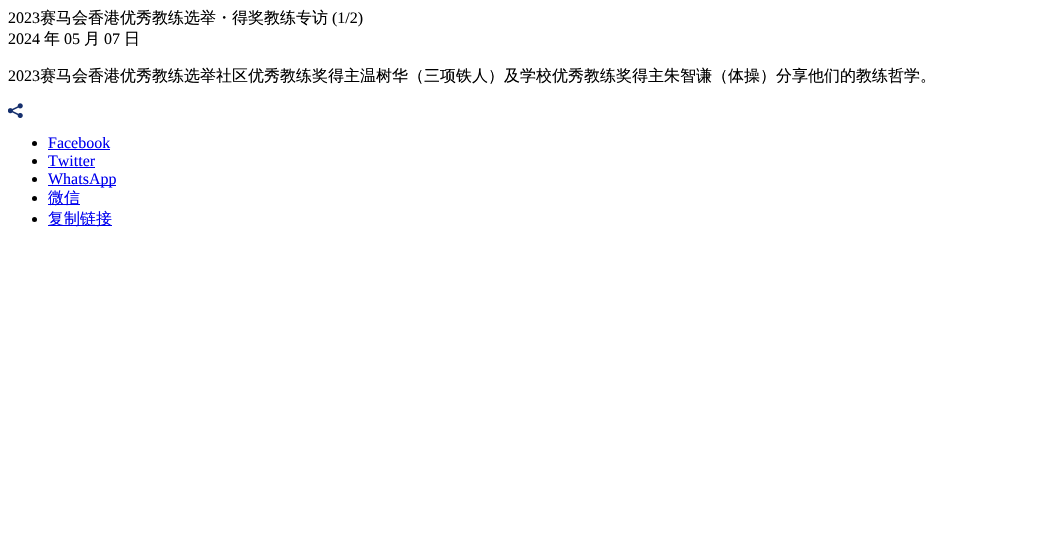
void draw(SkCanvas* canvas) {
	SkPaint paint;
	paint.setAntiAlias(true);
	canvas->clear(0xffffffff);
	SkFont f1(fontMgr->matchFamilyStyle("Liberation Serif", SkFontStyle::Normal()), 16);
	f1.setSubpixel(true);
	paint.setColor(0xff000000);
	canvas->drawString("2023", 8, 23, f1, paint);
	SkFont f2(fontMgr->matchFamilyStyle("WenQuanYi Zen Hei", SkFontStyle(500, SkFontStyle::kNormal_Width, SkFontStyle::kUpright_Slant)), 16);
	f2.setSubpixel(true);
	canvas->drawString("赛马会香港优秀教练选举・得奖教练专访", 40, 23, f2, paint);
	canvas->drawString("(1/2)", 332, 23, f1, paint);
	canvas->drawString("2024", 8, 44, f1, paint);
	canvas->drawString("年", 44, 44, f2, paint);
	canvas->drawString("05", 64, 44, f1, paint);
	canvas->drawString("月", 84, 44, f2, paint);
	canvas->drawString("07", 104, 44, f1, paint);
	canvas->drawString("日", 124, 44, f2, paint);
	canvas->drawString("2023", 8, 81, f1, paint);
	canvas->drawString("赛马会香港优秀教练选举社区优秀教练奖得主温树华（三项铁人）及学校优秀教练奖得主朱智谦（体操）分享他们的教练哲学。", 40, 81, f2, paint);
	canvas->drawImageRect(SkImages::DeferredFromEncodedData(SkData::MakeFromFileName("img1.png")), SkRect::MakeXYWH(8, 103, 15, 15), SkSamplingOptions());
	canvas->drawCircle(34.5, 143.5, 2.5, paint);
	paint.setColor(0xff0000ee);
	canvas->drawString("Facebook", 48, 148, f1, paint);
	canvas->drawRect(SkRect::MakeXYWH(48, 149, 62, 1), paint);
	paint.setColor(0xff000000);
	canvas->drawCircle(34.5, 161.5, 2.5, paint);
	paint.setColor(0xff0000ee);
	canvas->drawString("Twitter", 48, 166, f1, paint);
	canvas->drawRect(SkRect::MakeXYWH(48, 167, 47, 1), paint);
	paint.setColor(0xff000000);
	canvas->drawCircle(34.5, 179.5, 2.5, paint);
	paint.setColor(0xff0000ee);
	canvas->drawRect(SkRect::MakeXYWH(48, 185, 68, 1), paint);
	canvas->drawString("WhatsApp", 48, 184, f1, paint);
	paint.setColor(0xff000000);
	canvas->drawCircle(34.5, 198.5, 2.5, paint);
	paint.setColor(0xff0000ee);
	canvas->drawRect(SkRect::MakeXYWH(48, 204, 32, 1), paint);
	canvas->drawString("微信", 48, 203, f2, paint);
	paint.setColor(0xff000000);
	canvas->drawCircle(34.5, 219.5, 2.5, paint);
	paint.setColor(0xff0000ee);
	canvas->drawRect(SkRect::MakeXYWH(48, 225, 64, 1), paint);
	canvas->drawString("复制链接", 48, 224, f2, paint);
}
